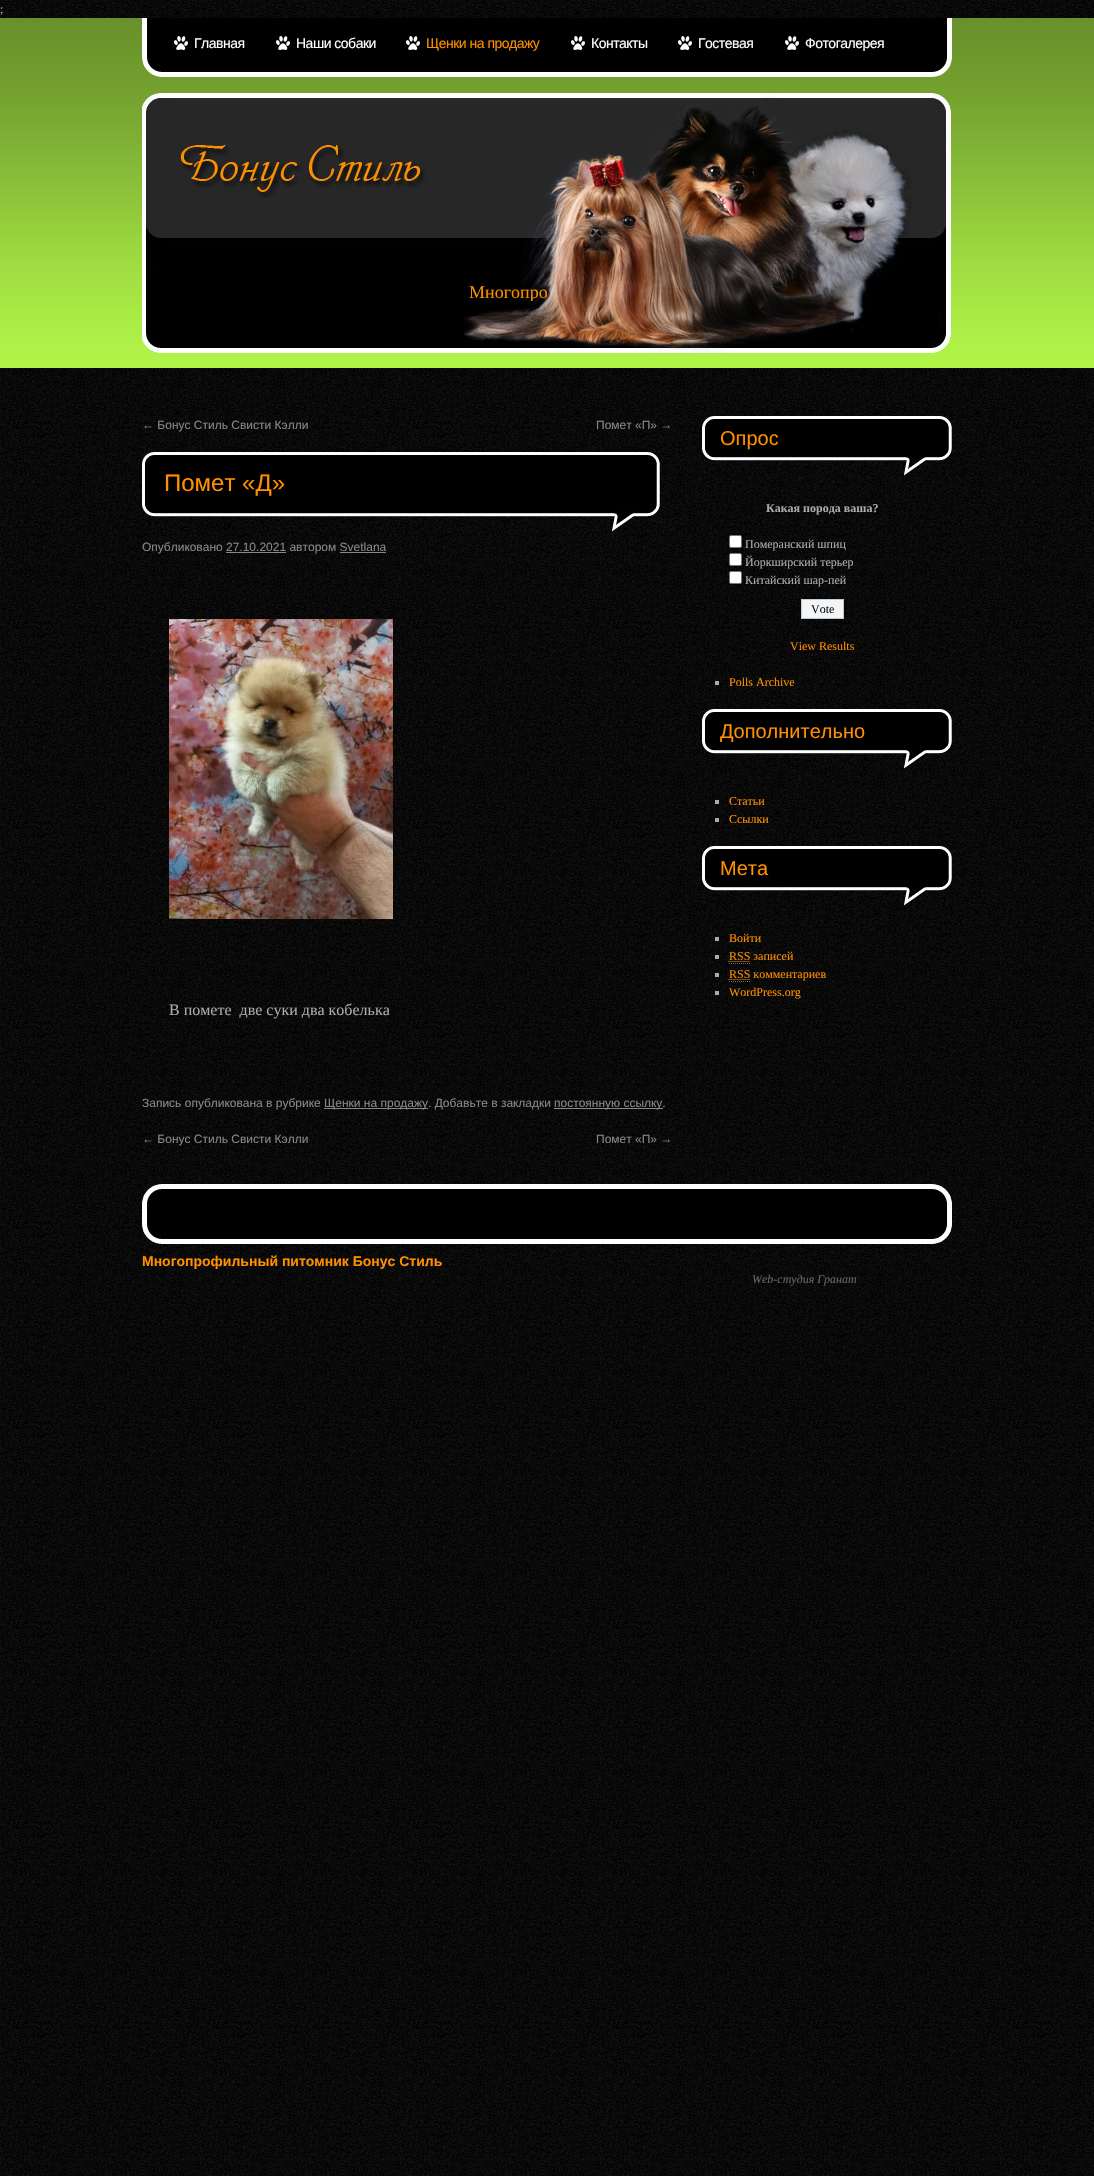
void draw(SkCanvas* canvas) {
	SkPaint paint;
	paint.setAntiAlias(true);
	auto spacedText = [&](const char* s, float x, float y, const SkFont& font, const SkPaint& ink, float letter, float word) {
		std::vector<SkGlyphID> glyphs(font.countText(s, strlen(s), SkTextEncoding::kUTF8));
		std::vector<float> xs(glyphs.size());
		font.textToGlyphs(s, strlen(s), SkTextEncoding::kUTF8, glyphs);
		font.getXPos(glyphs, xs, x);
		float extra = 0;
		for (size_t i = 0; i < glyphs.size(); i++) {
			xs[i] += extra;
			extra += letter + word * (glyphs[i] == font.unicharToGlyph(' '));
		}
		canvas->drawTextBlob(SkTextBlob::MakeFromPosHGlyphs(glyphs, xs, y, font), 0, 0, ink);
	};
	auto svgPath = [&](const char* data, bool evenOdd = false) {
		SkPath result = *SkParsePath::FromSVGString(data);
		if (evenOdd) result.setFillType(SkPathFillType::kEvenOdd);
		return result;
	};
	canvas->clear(0xffffffff);
	canvas->drawImageRect(SkImages::DeferredFromEncodedData(SkData::MakeFromFileName("img1.png")), SkRect::MakeXYWH(0, 0, 1094, 2176), SkSamplingOptions());
	SkFont f1(fontMgr->matchFamilyStyle("Liberation Serif", SkFontStyle::Normal()), 12);
	f1.setSubpixel(true);
	paint.setColor(0xffababab);
	canvas->drawString(";", 0, 13, f1, paint);
	canvas->drawImageRect(SkImages::DeferredFromEncodedData(SkData::MakeFromFileName("img2.png")), SkRect::MakeXYWH(0, 18, 1094, 350), SkSamplingOptions());
	canvas->drawImageRect(SkImages::DeferredFromEncodedData(SkData::MakeFromFileName("img3.png")), SkRect::MakeXYWH(142, 18, 810, 60), SkSamplingOptions());
	canvas->drawImageRect(SkImages::DeferredFromEncodedData(SkData::MakeFromFileName("img4.png")), SkRect::MakeXYWH(174, 36, 14, 14), SkSamplingOptions());
	SkFont f2(fontMgr->matchFamilyStyle("Liberation Sans", SkFontStyle::Normal()), 14);
	f2.setSubpixel(true);
	paint.setColor(0xffffffff);
	spacedText("Главная", 194, 48, f2, paint, -0.5, 0);
	canvas->drawImageRect(SkImages::DeferredFromEncodedData(SkData::MakeFromFileName("img4.png")), SkRect::MakeXYWH(276, 36, 14, 14), SkSamplingOptions());
	spacedText("Наши собаки", 296, 48, f2, paint, -0.5, 0);
	canvas->drawImageRect(SkImages::DeferredFromEncodedData(SkData::MakeFromFileName("img4.png")), SkRect::MakeXYWH(406, 36, 14, 14), SkSamplingOptions());
	paint.setColor(0xffff8e00);
	spacedText("Щенки на продажу", 426, 48, f2, paint, -0.5, 0);
	canvas->drawImageRect(SkImages::DeferredFromEncodedData(SkData::MakeFromFileName("img4.png")), SkRect::MakeXYWH(571, 36, 14, 14), SkSamplingOptions());
	paint.setColor(0xffffffff);
	spacedText("Контакты", 591, 48, f2, paint, -0.5, 0);
	canvas->drawImageRect(SkImages::DeferredFromEncodedData(SkData::MakeFromFileName("img4.png")), SkRect::MakeXYWH(678, 36, 14, 14), SkSamplingOptions());
	spacedText("Гостевая", 698, 48, f2, paint, -0.5, 0);
	canvas->drawImageRect(SkImages::DeferredFromEncodedData(SkData::MakeFromFileName("img4.png")), SkRect::MakeXYWH(785, 36, 14, 14), SkSamplingOptions());
	spacedText("Фотогалерея", 805, 48, f2, paint, -0.5, 0);
	canvas->drawImageRect(SkImages::DeferredFromEncodedData(SkData::MakeFromFileName("img5.png")), SkRect::MakeXYWH(142, 93, 810, 260), SkSamplingOptions());
	canvas->save();
	canvas->clipRect(SkRect::MakeXYWH(157, 283, 390, 18));
	SkFont f3(fontMgr->matchFamilyStyle("Liberation Serif", SkFontStyle::Normal()), 18);
	f3.setSubpixel(true);
	paint.setColor(0xffff8e00);
	canvas->drawString("Многопро", 469, 298, f3, paint);
	canvas->restore();
	SkFont f4(fontMgr->matchFamilyStyle("Liberation Sans", SkFontStyle::Normal()), 12);
	f4.setSubpixel(true);
	paint.setColor(0xff888888);
	canvas->drawString("← Бонус Стиль Свисти Кэлли", 142, 429, f4, paint);
	canvas->drawString("Помет «П» →", 596, 429, f4, paint);
	canvas->drawImageRect(SkImages::DeferredFromEncodedData(SkData::MakeFromFileName("img6.png")), SkRect::MakeXYWH(142, 452, 520, 80), SkSamplingOptions());
	SkFont f5(fontMgr->matchFamilyStyle("Liberation Sans", SkFontStyle::Normal()), 24);
	f5.setSubpixel(true);
	paint.setColor(0xffff8e00);
	canvas->drawString("Помет «Д»", 164, 491, f5, paint);
	paint.setColor(0xff888888);
	canvas->drawString("Опубликовано 27.10.2021 автором Svetlana", 142, 551, f4, paint);
	canvas->drawRect(SkRect::MakeXYWH(226, 552, 60, 1), paint);
	canvas->drawRect(SkRect::MakeXYWH(340, 552, 46, 1), paint);
	canvas->drawImageRect(SkImages::DeferredFromEncodedData(SkData::MakeFromFileName("img7.png")), SkRect::MakeXYWH(169, 619, 224, 300), SkSamplingOptions());
	SkFont f6(fontMgr->matchFamilyStyle("Liberation Serif", SkFontStyle::Normal()), 16);
	f6.setSubpixel(true);
	paint.setColor(0xffababab);
	canvas->drawString("В помете  две суки два кобелька", 169, 1015, f6, paint);
	paint.setColor(0xff888888);
	canvas->drawString("Запись опубликована в рубрике", 142, 1107, f4, paint);
	canvas->drawRect(SkRect::MakeXYWH(324, 1108, 104, 1), paint);
	canvas->drawString("Щенки на продажу. Добавьте в закладки", 324, 1107, f4, paint);
	canvas->drawRect(SkRect::MakeXYWH(554, 1108, 109, 1), paint);
	canvas->drawString("постоянную ссылку.", 554, 1107, f4, paint);
	canvas->drawString("← Бонус Стиль Свисти Кэлли", 142, 1143, f4, paint);
	canvas->drawString("Помет «П» →", 596, 1143, f4, paint);
	canvas->drawImageRect(SkImages::DeferredFromEncodedData(SkData::MakeFromFileName("img8.png")), SkRect::MakeXYWH(702, 416, 250, 60), SkSamplingOptions());
	SkFont f7(fontMgr->matchFamilyStyle("Liberation Sans", SkFontStyle::Normal()), 20);
	f7.setSubpixel(true);
	paint.setColor(0xffff8e00);
	canvas->drawString("Опрос", 720, 445, f7, paint);
	SkFont f8(fontMgr->matchFamilyStyle("Liberation Serif", SkFontStyle::Bold()), 12);
	f8.setSubpixel(true);
	paint.setColor(0xffababab);
	canvas->drawString("Какая порода ваша?", 766, 512, f8, paint);
	paint.setColor(0xffffffff);
	canvas->drawRoundRect(SkRect::MakeXYWH(729.5, 535.5, 12, 12), 1.5, 1.5, paint);
	paint.setStroke(true);
	paint.setStrokeWidth(1);
	paint.setColor(0xff767676);
	canvas->drawRoundRect(SkRect::MakeXYWH(729.5, 535.5, 12, 12), 1.5, 1.5, paint);
	paint.setStroke(false);
	paint.setColor(0xffababab);
	canvas->drawString("Померанский шпиц", 745, 548, f1, paint);
	paint.setColor(0xffffffff);
	canvas->drawRoundRect(SkRect::MakeXYWH(729.5, 553.5, 12, 12), 1.5, 1.5, paint);
	paint.setStroke(true);
	paint.setColor(0xff767676);
	canvas->drawRoundRect(SkRect::MakeXYWH(729.5, 553.5, 12, 12), 1.5, 1.5, paint);
	paint.setStroke(false);
	paint.setColor(0xffababab);
	canvas->drawString("Йоркширский терьер", 745, 566, f1, paint);
	paint.setColor(0xffffffff);
	canvas->drawRoundRect(SkRect::MakeXYWH(729.5, 571.5, 12, 12), 1.5, 1.5, paint);
	paint.setStroke(true);
	paint.setColor(0xff767676);
	canvas->drawRoundRect(SkRect::MakeXYWH(729.5, 571.5, 12, 12), 1.5, 1.5, paint);
	paint.setStroke(false);
	paint.setColor(0xffababab);
	canvas->drawString("Китайский шар-пей", 745, 584, f1, paint);
	paint.setColor(0xfff3f6f8);
	canvas->drawRect(SkRect::MakeXYWH(801.5, 599.5, 42, 19), paint);
	paint.setStroke(true);
	paint.setColor(0xffc8c8c8);
	canvas->drawRect(SkRect::MakeXYWH(801.5, 599.5, 42, 19), paint);
	paint.setStroke(false);
	paint.setColor(0xff111111);
	canvas->drawString("Vote", 811, 613, f1, paint);
	paint.setColor(0xffff8e00);
	canvas->drawString("View Results", 790, 650, f1, paint);
	paint.setColor(0xffababab);
	canvas->drawRect(SkRect::MakeXYWH(715, 681, 4, 4), paint);
	paint.setColor(0xffff8e00);
	canvas->drawString("Polls Archive", 729, 686, f1, paint);
	canvas->drawImageRect(SkImages::DeferredFromEncodedData(SkData::MakeFromFileName("img8.png")), SkRect::MakeXYWH(702, 709, 250, 60), SkSamplingOptions());
	canvas->drawString("Дополнительно", 720, 738, f7, paint);
	paint.setColor(0xffababab);
	canvas->drawRect(SkRect::MakeXYWH(715, 800, 4, 4), paint);
	paint.setColor(0xffff8e00);
	canvas->drawString("Статьи", 729, 805, f1, paint);
	paint.setColor(0xffababab);
	canvas->drawRect(SkRect::MakeXYWH(715, 818, 4, 4), paint);
	paint.setColor(0xffff8e00);
	canvas->drawString("Ссылки", 729, 823, f1, paint);
	canvas->drawImageRect(SkImages::DeferredFromEncodedData(SkData::MakeFromFileName("img8.png")), SkRect::MakeXYWH(702, 846, 250, 60), SkSamplingOptions());
	canvas->drawString("Мета", 720, 875, f7, paint);
	paint.setColor(0xffababab);
	canvas->drawRect(SkRect::MakeXYWH(715, 937, 4, 4), paint);
	paint.setColor(0xffff8e00);
	canvas->drawString("Войти", 729, 942, f1, paint);
	paint.setColor(0xffababab);
	canvas->drawRect(SkRect::MakeXYWH(715, 955, 4, 4), paint);
	paint.setColor(0xffff8e00);
	canvas->drawString("RSS записей", 729, 960, f1, paint);
	paint.setStroke(true);
	paint.setColor(0xff666666);
	paint.setPathEffect(SkDashPathEffect::Make({{1, 1}}, 0));
	canvas->drawPath(svgPath("M729 963.5H750"), paint);
	paint.setPathEffect(nullptr);
	paint.setColor(0xffff8e00);
	paint.setPathEffect(SkDashPathEffect::Make({{1, 1}}, 0));
	canvas->drawPath(svgPath("M728.5 961.5H750"), paint);
	paint.setPathEffect(nullptr);
	paint.setStroke(false);
	paint.setColor(0xffababab);
	canvas->drawRect(SkRect::MakeXYWH(715, 973, 4, 4), paint);
	paint.setStroke(true);
	paint.setColor(0xffff8e00);
	paint.setPathEffect(SkDashPathEffect::Make({{1, 1}}, 0));
	canvas->drawPath(svgPath("M728.5 979.5H750"), paint);
	paint.setPathEffect(nullptr);
	paint.setStroke(false);
	canvas->drawString("RSS комментариев", 729, 978, f1, paint);
	paint.setStroke(true);
	paint.setColor(0xff666666);
	paint.setPathEffect(SkDashPathEffect::Make({{1, 1}}, 0));
	canvas->drawPath(svgPath("M729 981.5H750"), paint);
	paint.setPathEffect(nullptr);
	paint.setStroke(false);
	paint.setColor(0xffababab);
	canvas->drawRect(SkRect::MakeXYWH(715, 991, 4, 4), paint);
	paint.setColor(0xffff8e00);
	canvas->drawString("WordPress.org", 729, 996, f1, paint);
	canvas->drawImageRect(SkImages::DeferredFromEncodedData(SkData::MakeFromFileName("img9.png")), SkRect::MakeXYWH(142, 1184, 810, 60), SkSamplingOptions());
	SkFont f9(fontMgr->matchFamilyStyle("Liberation Sans", SkFontStyle::Bold()), 14);
	f9.setSubpixel(true);
	canvas->drawString("Многопрофильный питомник Бонус Стиль", 142, 1266, f9, paint);
	SkFont f10(fontMgr->matchFamilyStyle("Liberation Serif", SkFontStyle::Italic()), 12);
	f10.setSubpixel(true);
	paint.setColor(0xff666666);
	canvas->drawString("Web-студия Гранат", 752, 1283, f10, paint);
}
